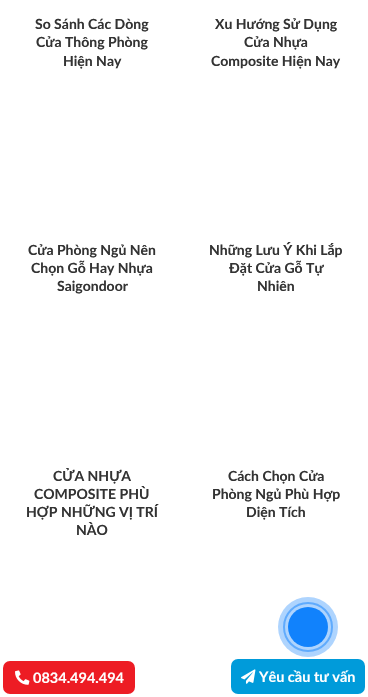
void draw(SkCanvas* canvas) {
	SkPaint paint;
	paint.setAntiAlias(true);
	canvas->clear(0xffffffff);
	SkFont f1(fontMgr->matchFamilyStyle("Lato", SkFontStyle::Bold()), 14);
	f1.setSubpixel(true);
	paint.setColor(0xff333333);
	canvas->drawString("So Sánh Các Dòng", 35, 29, f1, paint);
	canvas->drawString("Cửa Thông Phòng", 36, 47, f1, paint);
	canvas->drawString("Hiện Nay", 63, 66, f1, paint);
	canvas->drawString("Xu Hướng Sử Dụng", 215, 29, f1, paint);
	canvas->drawString("Cửa Nhựa", 244, 47, f1, paint);
	canvas->drawString("Composite Hiện Nay", 211, 66, f1, paint);
	canvas->drawString("Cửa Phòng Ngủ Nên", 28, 255, f1, paint);
	canvas->drawString("Chọn Gỗ Hay Nhựa", 31, 273, f1, paint);
	canvas->drawString("Saigondoor", 57, 291, f1, paint);
	canvas->drawString("Những Lưu Ý Khi Lắp", 209, 255, f1, paint);
	canvas->drawString("Đặt Cửa Gỗ Tự", 229, 273, f1, paint);
	canvas->drawString("Nhiên", 257, 291, f1, paint);
	canvas->drawString("CỬA NHỰA", 53, 481, f1, paint);
	canvas->drawString("COMPOSITE PHÙ", 34, 499, f1, paint);
	canvas->drawString("HỢP NHỮNG VỊ TRÍ", 26, 517, f1, paint);
	canvas->drawString("NÀO", 76, 535, f1, paint);
	canvas->drawString("Cách Chọn Cửa", 228, 481, f1, paint);
	canvas->drawString("Phòng Ngủ Phù Hợp", 212, 499, f1, paint);
	canvas->drawString("Diện Tích", 246, 517, f1, paint);
	paint.setStroke(true);
	paint.setStrokeWidth(2);
	paint.setColor(0xff88c1fe);
	canvas->drawCircle(308, 627, 24, paint);
	paint.setStroke(false);
	paint.setColor(0x571182fc);
	canvas->drawCircle(308, 627, 30, paint);
	paint.setColor(0xff1182fc);
	canvas->drawCircle(308, 627, 20, paint);
	paint.setColor(0xffed1c24);
	canvas->drawRoundRect(SkRect::MakeXYWH(3, 661, 132, 33), 7, 7, paint);
	canvas->drawImageRect(SkImages::DeferredFromEncodedData(SkData::MakeFromFileName("img1.png")), SkRect::MakeXYWH(15, 670, 15, 15), SkSamplingOptions());
	SkFont f2(fontMgr->matchFamilyStyle("Lato", SkFontStyle::Bold()), 14.5);
	f2.setSubpixel(true);
	paint.setColor(0xffffffff);
	canvas->drawString("0834.494.494", 33, 683, f2, paint);
	paint.setColor(0xff009bda);
	canvas->drawRoundRect(SkRect::MakeXYWH(231, 659, 134, 35), 7, 7, paint);
	canvas->drawImageRect(SkImages::DeferredFromEncodedData(SkData::MakeFromFileName("img2.png")), SkRect::MakeXYWH(241, 669, 15, 15), SkSamplingOptions());
	paint.setColor(0xffffffff);
	canvas->drawString("Yêu cầu tư vấn", 259, 682, f2, paint);
}
